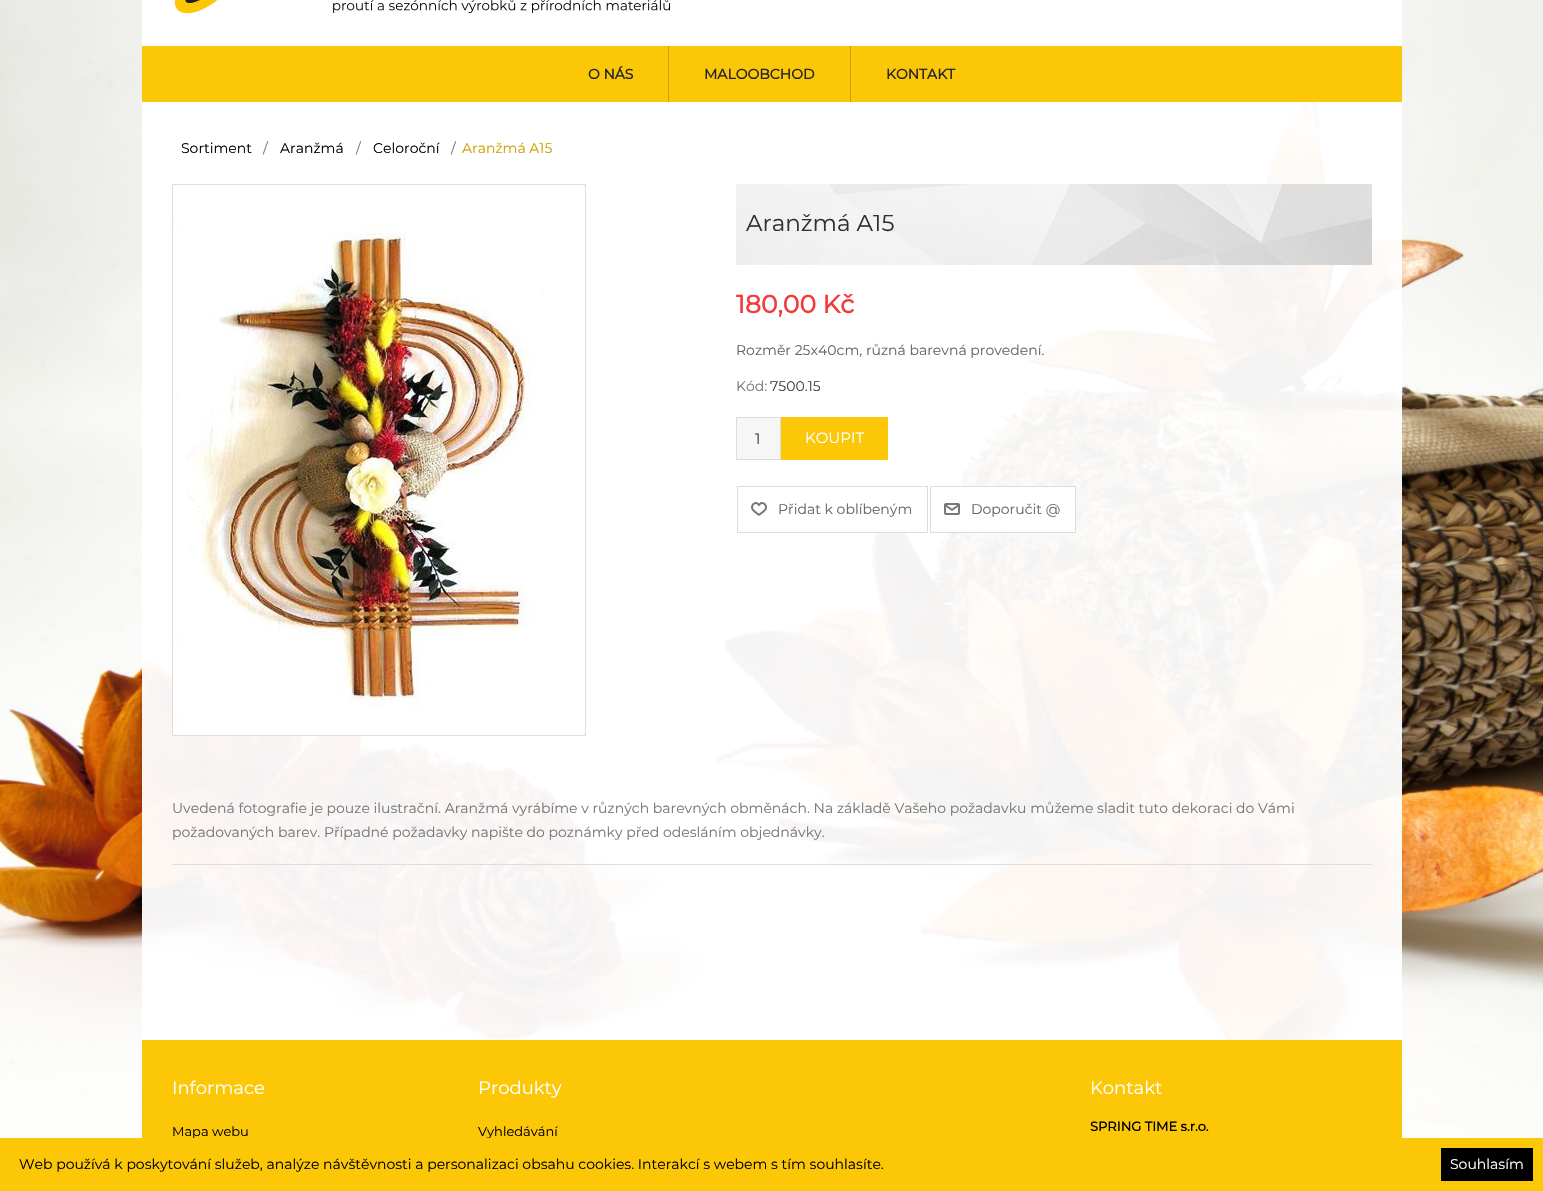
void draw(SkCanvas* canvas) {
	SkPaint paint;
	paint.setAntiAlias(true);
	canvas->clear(0xffffffff);
	canvas->drawImageRect(SkImages::DeferredFromEncodedData(SkData::MakeFromFileName("img1.png")), SkRect::MakeXYWH(0, 0, 1543, 1138), SkSamplingOptions());
	paint.setColor(0xf2ffffff);
	canvas->drawRect(SkRect::MakeXYWH(142, 0, 1260, 1040), paint);
	canvas->drawImageRect(SkImages::DeferredFromEncodedData(SkData::MakeFromFileName("img2.png")), SkRect::MakeXYWH(174, 0, 497, 14), SkSamplingOptions());
	paint.setColor(0xfffbc707);
	canvas->drawRect(SkRect::MakeXYWH(142, 46, 1260, 56), paint);
	SkFont f1(fontMgr->matchFamilyStyle("Montserrat", SkFontStyle::Bold()), 14);
	f1.setSubpixel(true);
	paint.setColor(0xff262626);
	canvas->drawString("O NÁS", 588, 79, f1, paint);
	paint.setColor(0xffcca103);
	canvas->drawRect(SkRect::MakeXYWH(668, 46, 1, 56), paint);
	paint.setColor(0xff262626);
	canvas->drawString("MALOOBCHOD", 704, 79, f1, paint);
	paint.setColor(0xffcca103);
	canvas->drawRect(SkRect::MakeXYWH(850, 46, 1, 56), paint);
	paint.setColor(0xff262626);
	canvas->drawString("KONTAKT", 886, 79, f1, paint);
	SkFont f2(fontMgr->matchFamilyStyle("Montserrat", SkFontStyle::Normal()), 14);
	f2.setSubpixel(true);
	paint.setColor(0xff000000);
	canvas->drawString("Sortiment", 181, 153, f2, paint);
	paint.setColor(0xff777777);
	canvas->drawString("/", 263, 153, f2, paint);
	paint.setColor(0xff000000);
	canvas->drawString("Aranžmá", 280, 153, f2, paint);
	paint.setColor(0xff777777);
	canvas->drawString("/", 356, 153, f2, paint);
	paint.setColor(0xff000000);
	canvas->drawString("Celoroční", 373, 153, f2, paint);
	paint.setColor(0xff777777);
	canvas->drawString("/", 451, 153, f2, paint);
	paint.setColor(0xffcca103);
	canvas->drawString("Aranžmá A15", 462, 153, f2, paint);
	paint.setColor(0xffdddddd);
	canvas->drawRect(SkRect::MakeXYWH(172, 864, 1200, 1), paint);
	paint.setStroke(true);
	paint.setStrokeWidth(1);
	paint.setColor(0xfcdddddd);
	canvas->drawRect(SkRect::MakeXYWH(172.5, 184.5, 413, 551), paint);
	canvas->drawImageRect(SkImages::DeferredFromEncodedData(SkData::MakeFromFileName("img3.png")), SkRect::MakeXYWH(173, 217, 370, 518), SkSamplingOptions());
	canvas->drawImageRect(SkImages::DeferredFromEncodedData(SkData::MakeFromFileName("img4.png")), SkRect::MakeXYWH(736, 184, 636, 81), SkSamplingOptions());
	SkFont f3(fontMgr->matchFamilyStyle("Montserrat", SkFontStyle::Normal()), 23);
	f3.setSubpixel(true);
	paint.setStroke(false);
	paint.setColor(0xff303030);
	canvas->drawString("Aranžmá A15", 746, 231, f3, paint);
	SkFont f4(fontMgr->matchFamilyStyle("Montserrat", SkFontStyle::Bold()), 25);
	f4.setSubpixel(true);
	paint.setColor(0xfff23c3c);
	canvas->drawString("180,00 Kč", 736, 313, f4, paint);
	paint.setColor(0xff666666);
	canvas->drawString("Rozměr 25x40cm, různá barevná provedení.", 736, 355, f2, paint);
	paint.setColor(0xff777777);
	canvas->drawString("Kód:", 736, 391, f2, paint);
	paint.setColor(0xff444444);
	canvas->drawString("7500.15", 770, 391, f2, paint);
	paint.setColor(0xfff6f6f6);
	canvas->drawRect(SkRect::MakeXYWH(736.5, 417.5, 44, 42), paint);
	paint.setStroke(true);
	paint.setColor(0xffdddddd);
	canvas->drawRect(SkRect::MakeXYWH(736.5, 417.5, 44, 42), paint);
	SkFont f5(fontMgr->matchFamilyStyle("Montserrat", SkFontStyle::Normal()), 15);
	f5.setSubpixel(true);
	paint.setStroke(false);
	paint.setColor(0xff444444);
	canvas->drawString("1", 755, 444, f5, paint);
	paint.setColor(0xfffbc707);
	canvas->drawRect(SkRect::MakeXYWH(781, 417, 107, 43), paint);
	paint.setColor(0xffffffff);
	canvas->drawString("KOUPIT", 805, 443, f5, paint);
	canvas->drawRect(SkRect::MakeXYWH(875, 496, 31, 36), paint);
	canvas->drawImageRect(SkImages::DeferredFromEncodedData(SkData::MakeFromFileName("img5.png")), SkRect::MakeXYWH(751, 502, 16, 14), SkSamplingOptions());
	paint.setStroke(true);
	paint.setColor(0xffdddddd);
	canvas->drawRect(SkRect::MakeXYWH(737.5, 486.5, 190, 46), paint);
	paint.setStroke(false);
	paint.setColor(0xff666666);
	canvas->drawString("Přidat k oblíbeným", 778, 514, f2, paint);
	paint.setColor(0xffffffff);
	canvas->drawRect(SkRect::MakeXYWH(943, 487, 132, 45), paint);
	canvas->drawImageRect(SkImages::DeferredFromEncodedData(SkData::MakeFromFileName("img6.png")), SkRect::MakeXYWH(944, 503, 16, 12), SkSamplingOptions());
	paint.setStroke(true);
	paint.setColor(0xffdddddd);
	canvas->drawRect(SkRect::MakeXYWH(930.5, 486.5, 145, 46), paint);
	paint.setStroke(false);
	paint.setColor(0xff666666);
	canvas->drawString("Doporučit @", 971, 514, f2, paint);
	paint.setColor(0xff777777);
	canvas->drawString("Uvedená fotografie je pouze ilustrační. Aranžmá vyrábíme v různých barevných obměnách. Na základě Vašeho požadavku můžeme sladit tuto dekoraci do Vámi", 172, 813, f2, paint);
	canvas->drawString("požadovaných barev. Případné požadavky napište do poznámky před odesláním objednávky.", 172, 837, f2, paint);
	paint.setColor(0xfffbc707);
	canvas->drawRect(SkRect::MakeXYWH(142, 1040, 1260, 98), paint);
	SkFont f6(fontMgr->matchFamilyStyle("Montserrat", SkFontStyle::Normal()), 18);
	f6.setSubpixel(true);
	paint.setColor(0xffffffff);
	canvas->drawString("Informace", 172, 1094, f6, paint);
	SkFont f7(fontMgr->matchFamilyStyle("Montserrat", SkFontStyle::Normal()), 13);
	f7.setSubpixel(true);
	paint.setColor(0xff000000);
	canvas->drawString("Mapa webu", 172, 1136, f7, paint);
	paint.setColor(0xffffffff);
	canvas->drawString("Produkty", 478, 1094, f6, paint);
	paint.setColor(0xff000000);
	canvas->drawString("Vyhledávání", 478, 1136, f7, paint);
	paint.setColor(0xffffffff);
	canvas->drawString("Kontakt", 1090, 1094, f6, paint);
	SkFont f8(fontMgr->matchFamilyStyle("Montserrat", SkFontStyle::Bold()), 13);
	f8.setSubpixel(true);
	paint.setColor(0xff000000);
	canvas->drawString("SPRING TIME s.r.o.", 1090, 1131, f8, paint);
	paint.setColor(0xfffbc707);
	canvas->drawRect(SkRect::MakeXYWH(0, 1138, 1543, 53), paint);
	paint.setColor(0xff000000);
	canvas->drawString("Web používá k poskytování služeb, analýze návštěvnosti a personalizaci obsahu cookies. Interakcí s webem s tím souhlasíte.", 19, 1169, f2, paint);
	canvas->drawRect(SkRect::MakeXYWH(1441, 1148, 92, 33), paint);
	paint.setColor(0xffffffff);
	canvas->drawString("Souhlasím", 1450, 1169, f2, paint);
}
